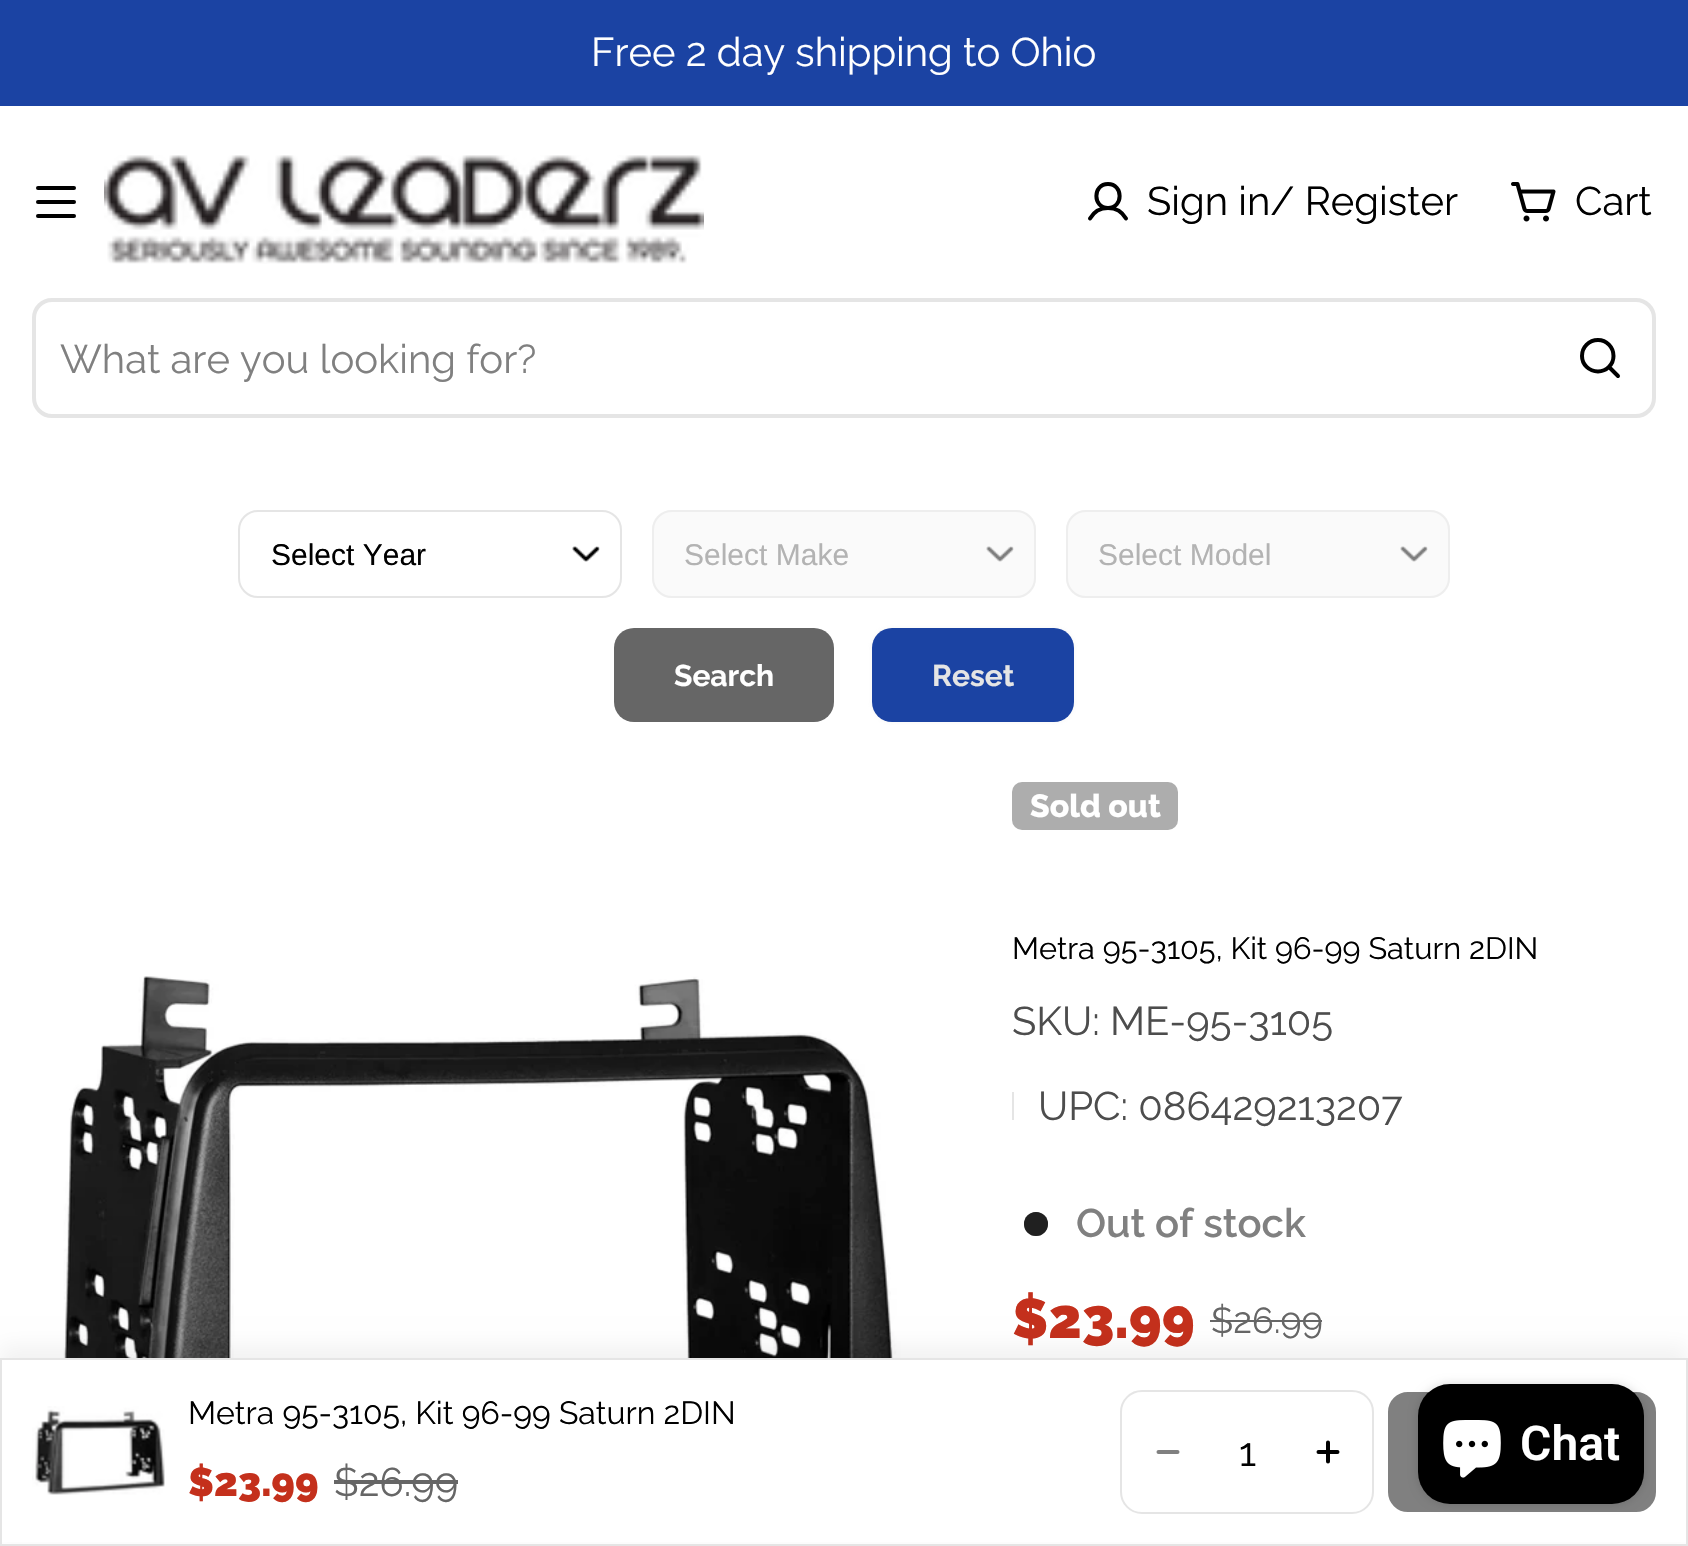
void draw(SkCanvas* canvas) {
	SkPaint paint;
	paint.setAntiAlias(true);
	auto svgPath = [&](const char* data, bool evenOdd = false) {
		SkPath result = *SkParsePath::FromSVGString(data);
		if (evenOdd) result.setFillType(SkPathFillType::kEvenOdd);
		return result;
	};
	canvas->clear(0xffffffff);
	paint.setColor(0xff1b43a3);
	canvas->drawRect(SkRect::MakeXYWH(0, 0, 1688, 106), paint);
	SkFont f1(fontMgr->matchFamilyStyle("Raleway", SkFontStyle::Normal()), 40);
	f1.setSubpixel(true);
	paint.setColor(0xffffffff);
	canvas->drawString("Free 2 day shipping to Ohio", 591, 66, f1, paint);
	paint.setColor(0xff000000);
	canvas->drawRoundRect(SkRect::MakeXYWH(36, 200, 40, 4), 2, 2, paint);
	canvas->drawRoundRect(SkRect::MakeXYWH(36, 186, 40, 4), 2, 2, paint);
	canvas->drawRoundRect(SkRect::MakeXYWH(36, 214, 40, 4), 2, 2, paint);
	canvas->drawImageRect(SkImages::DeferredFromEncodedData(SkData::MakeFromFileName("img1.png")), SkRect::MakeXYWH(104, 155, 600, 109), SkSamplingOptions());
	paint.setStroke(true);
	paint.setStrokeWidth(4);
	paint.setStrokeCap(SkPaint::kRound_Cap);
	paint.setStrokeJoin(SkPaint::kRound_Join);
	canvas->drawPath(svgPath("M1108 208C1123.5 208 1123.5 184 1108 184C1092.5 184 1092.5 208 1108 208ZM1090 218.5C1098 204.5 1118 204.5 1126 218.5"), paint);
	paint.setStroke(false);
	canvas->drawString("Sign in/ Register", 1147, 215, f1, paint);
	canvas->drawImageRect(SkImages::DeferredFromEncodedData(SkData::MakeFromFileName("img2.png")), SkRect::MakeXYWH(1511, 182, 45, 40), SkSamplingOptions());
	canvas->drawString("Cart", 1575, 215, f1, paint);
	paint.setStroke(true);
	paint.setStrokeCap(SkPaint::kButt_Cap);
	paint.setStrokeJoin(SkPaint::kMiter_Join);
	paint.setColor(0xffe5e5e5);
	canvas->drawRoundRect(SkRect::MakeXYWH(34, 300, 1620, 116), 18, 18, paint);
	paint.setStroke(false);
	paint.setColor(0xff808080);
	canvas->drawString("What are you looking for?", 60, 373, f1, paint);
	paint.setStroke(true);
	paint.setStrokeCap(SkPaint::kRound_Cap);
	paint.setStrokeJoin(SkPaint::kRound_Join);
	paint.setColor(0xff000000);
	canvas->drawPath(svgPath("M1598 371.5C1606.5 371.5 1613.5 364.5 1613.5 356C1613.5 347 1606.5 340 1598 340C1589 340 1582 347 1582 356C1582 364.5 1589 371.5 1598 371.5ZM1609 367L1618 376"), paint);
	canvas->drawImageRect(SkImages::DeferredFromEncodedData(SkData::MakeFromFileName("img3.png")), SkRect::MakeXYWH(572, 546, 28, 16), SkSamplingOptions());
	paint.setStrokeWidth(2);
	paint.setStrokeCap(SkPaint::kButt_Cap);
	paint.setStrokeJoin(SkPaint::kMiter_Join);
	paint.setColor(0xffe5e5e5);
	canvas->drawRoundRect(SkRect::MakeXYWH(239, 511, 382, 86), 19, 19, paint);
	SkFont f2(fontMgr->matchFamilyStyle("Liberation Sans", SkFontStyle::Normal()), 30);
	f2.setSubpixel(true);
	paint.setStroke(false);
	paint.setColor(0xff000000);
	canvas->drawString("Select Year", 271, 565, f2, paint);
	paint.setColor(0xfffafafa);
	canvas->drawRoundRect(SkRect::MakeXYWH(652, 510, 384, 88), 20, 20, paint);
	canvas->drawImageRect(SkImages::DeferredFromEncodedData(SkData::MakeFromFileName("img4.png")), SkRect::MakeXYWH(986, 546, 28, 16), SkSamplingOptions());
	paint.setStroke(true);
	paint.setColor(0xffeeeeee);
	canvas->drawRoundRect(SkRect::MakeXYWH(653, 511, 382, 86), 19, 19, paint);
	paint.setStroke(false);
	paint.setColor(0xffb3b3b3);
	canvas->drawString("Select Make", 684, 565, f2, paint);
	paint.setColor(0xfffafafa);
	canvas->drawRoundRect(SkRect::MakeXYWH(1066, 510, 384, 88), 20, 20, paint);
	canvas->drawImageRect(SkImages::DeferredFromEncodedData(SkData::MakeFromFileName("img5.png")), SkRect::MakeXYWH(1400, 546, 28, 16), SkSamplingOptions());
	paint.setStroke(true);
	paint.setColor(0xffeeeeee);
	canvas->drawRoundRect(SkRect::MakeXYWH(1067, 511, 382, 86), 19, 19, paint);
	paint.setStroke(false);
	paint.setColor(0xffb3b3b3);
	canvas->drawString("Select Model", 1098, 565, f2, paint);
	paint.setColor(0xff666666);
	canvas->drawRoundRect(SkRect::MakeXYWH(614, 628, 220, 94), 20, 20, paint);
	SkFont f3(fontMgr->matchFamilyStyle("Raleway", SkFontStyle::Bold()), 30);
	f3.setSubpixel(true);
	paint.setColor(0xffffffff);
	canvas->drawString("Search", 674, 686, f3, paint);
	paint.setColor(0x4ddadada);
	paint.setMaskFilter(SkMaskFilter::MakeBlur(kNormal_SkBlurStyle, 2));
	canvas->drawRoundRect(SkRect::MakeXYWH(872, 628, 202, 94), 20, 20, paint);
	paint.setMaskFilter(nullptr);
	paint.setColor(0xff1b43a3);
	canvas->drawRoundRect(SkRect::MakeXYWH(872, 628, 202, 94), 20, 20, paint);
	paint.setColor(0xffe5e5e5);
	canvas->drawString("Reset", 932, 686, f3, paint);
	canvas->drawImageRect(SkImages::DeferredFromEncodedData(SkData::MakeFromFileName("img6.png")), SkRect::MakeXYWH(60, 976, 841, 382), SkSamplingOptions());
	paint.setColor(0xffadadad);
	canvas->drawRoundRect(SkRect::MakeXYWH(1012, 782, 166, 48), 10, 10, paint);
	SkFont f4(fontMgr->matchFamilyStyle("Raleway", SkFontStyle(800, SkFontStyle::kNormal_Width, SkFontStyle::kUpright_Slant)), 32);
	f4.setSubpixel(true);
	paint.setColor(0xffffffff);
	canvas->drawString("Sold out", 1030, 817, f4, paint);
	SkFont f5(fontMgr->matchFamilyStyle("Raleway", SkFontStyle::Normal()), 30.75);
	f5.setSubpixel(true);
	paint.setColor(0xff000000);
	canvas->drawString("Metra 95-3105, Kit 96-99 Saturn 2DIN", 1012, 959, f5, paint);
	paint.setColor(0xff4d4d4d);
	canvas->drawString("SKU: ME-95-3105", 1012, 1035, f1, paint);
	paint.setColor(0xffe5e5e5);
	canvas->drawRect(SkRect::MakeXYWH(1012, 1092, 2, 28), paint);
	paint.setColor(0xff4d4d4d);
	canvas->drawString("UPC: 086429213207", 1038, 1120, f1, paint);
	paint.setColor(0xff808080);
	canvas->drawCircle(1036, 1224, 12, paint);
	paint.setColor(0x80000000);
	canvas->drawCircle(1036, 1224, 12, paint);
	canvas->drawCircle(1036, 1224, 12, paint);
	SkFont f6(fontMgr->matchFamilyStyle("Raleway", SkFontStyle(600, SkFontStyle::kNormal_Width, SkFontStyle::kUpright_Slant)), 40);
	f6.setSubpixel(true);
	paint.setColor(0xff808080);
	canvas->drawString("Out of stock", 1076, 1237, f6, paint);
	SkFont f7(fontMgr->matchFamilyStyle("Raleway", SkFontStyle(900, SkFontStyle::kNormal_Width, SkFontStyle::kUpright_Slant)), 56);
	f7.setSubpixel(true);
	paint.setColor(0xffc4301c);
	canvas->drawString("$23.99", 1012, 1338, f7, paint);
	SkFont f8(fontMgr->matchFamilyStyle("Raleway", SkFontStyle::Normal()), 36);
	f8.setSubpixel(true);
	paint.setColor(0xff666666);
	canvas->drawString("$26.99", 1211, 1333, f8, paint);
	canvas->drawRect(SkRect::MakeXYWH(1210, 1320, 112, 2), paint);
	paint.setColor(0x0d000000);
	paint.setMaskFilter(SkMaskFilter::MakeBlur(kNormal_SkBlurStyle, 10));
	canvas->drawRect(SkRect::MakeXYWH(0, 1346, 1688, 188), paint);
	paint.setMaskFilter(nullptr);
	paint.setColor(0xffffffff);
	canvas->drawRect(SkRect::MakeXYWH(2, 1360, 1684, 182), paint);
	paint.setStroke(true);
	paint.setColor(0xffe5e5e5);
	canvas->drawRect(SkRect::MakeXYWH(1, 1359, 1686, 186), paint);
	canvas->drawImageRect(SkImages::DeferredFromEncodedData(SkData::MakeFromFileName("img7.png")), SkRect::MakeXYWH(32, 1406, 133, 89), SkSamplingOptions());
	SkFont f9(fontMgr->matchFamilyStyle("Raleway", SkFontStyle::Normal()), 32);
	f9.setSubpixel(true);
	paint.setStroke(false);
	paint.setColor(0xff000000);
	canvas->drawString("Metra 95-3105, Kit 96-99 Saturn 2DIN", 188, 1424, f9, paint);
	SkFont f10(fontMgr->matchFamilyStyle("Raleway", SkFontStyle(900, SkFontStyle::kNormal_Width, SkFontStyle::kUpright_Slant)), 40);
	f10.setSubpixel(true);
	paint.setColor(0xffc4301c);
	canvas->drawString("$23.99", 188, 1496, f10, paint);
	paint.setColor(0xff666666);
	canvas->drawString("$26.99", 334, 1496, f1, paint);
	canvas->drawRect(SkRect::MakeXYWH(334, 1480, 124, 4), paint);
	paint.setStroke(true);
	paint.setColor(0xffe5e5e5);
	canvas->drawRoundRect(SkRect::MakeXYWH(1121, 1391, 252, 122), 21, 21, paint);
	paint.setStrokeWidth(4);
	paint.setStrokeCap(SkPaint::kRound_Cap);
	paint.setStrokeJoin(SkPaint::kRound_Join);
	paint.setColor(0xff808080);
	canvas->drawPath(svgPath("M1158.5 1452H1177.5"), paint);
	paint.setStroke(false);
	paint.setColor(0xff000000);
	canvas->drawString("1", 1239, 1466, f1, paint);
	paint.setStroke(true);
	canvas->drawPath(svgPath("M1318.5 1452H1337.5M1328 1442.5V1461.5"), paint);
	paint.setStroke(false);
	paint.setColor(0xff808080);
	canvas->drawRoundRect(SkRect::MakeXYWH(1389, 1393, 266, 118), 19, 19, paint);
	paint.setStroke(true);
	paint.setStrokeWidth(2);
	paint.setStrokeCap(SkPaint::kButt_Cap);
	paint.setStrokeJoin(SkPaint::kMiter_Join);
	canvas->drawRoundRect(SkRect::MakeXYWH(1389, 1393, 266, 118), 19, 19, paint);
	paint.setStroke(false);
	paint.setColor(0x26000000);
	paint.setMaskFilter(SkMaskFilter::MakeBlur(kNormal_SkBlurStyle, 5));
	canvas->drawRoundRect(SkRect::MakeXYWH(1418, 1384, 226, 120), 32, 32, paint);
	paint.setMaskFilter(nullptr);
	paint.setColor(0xff000000);
	canvas->drawRoundRect(SkRect::MakeXYWH(1418, 1384, 226, 120), 32, 32, paint);
	canvas->drawImageRect(SkImages::DeferredFromEncodedData(SkData::MakeFromFileName("img8.png")), SkRect::MakeXYWH(1443, 1420, 58, 58), SkSamplingOptions());
	SkFont f11(fontMgr->matchFamilyStyle("Roboto", SkFontStyle(600, SkFontStyle::kNormal_Width, SkFontStyle::kUpright_Slant)), 48);
	f11.setSubpixel(true);
	paint.setColor(0xffffffff);
	canvas->drawString("Chat", 1520, 1460, f11, paint);
}
